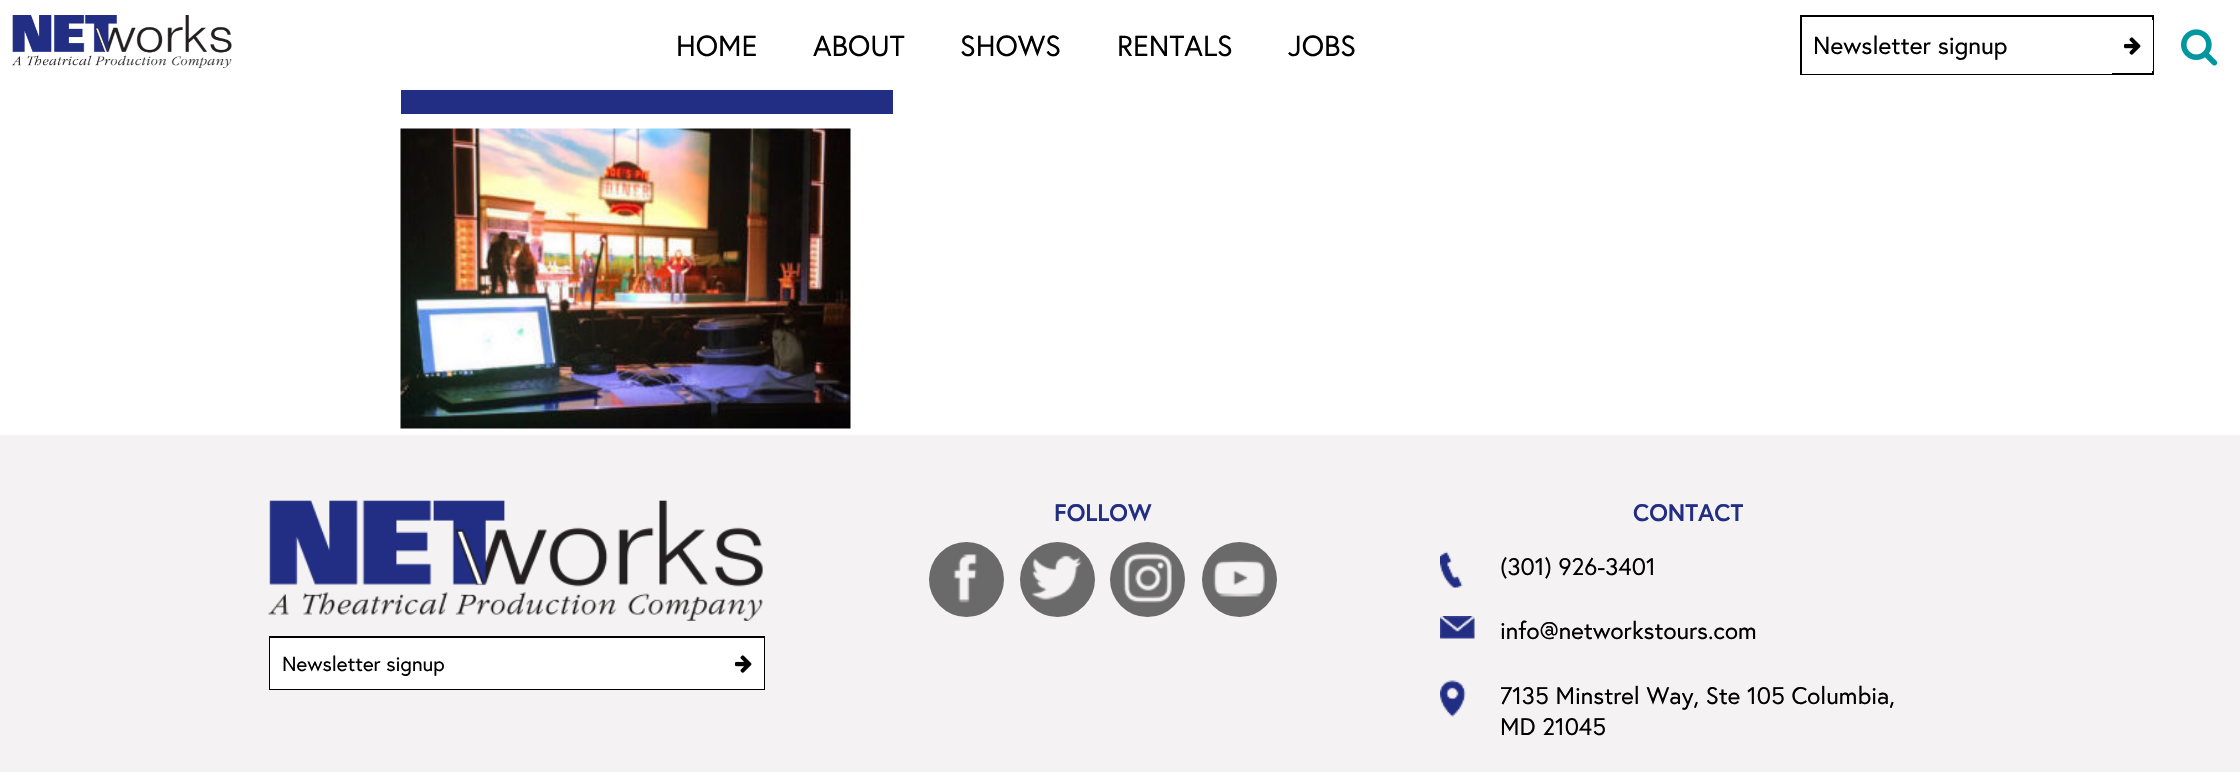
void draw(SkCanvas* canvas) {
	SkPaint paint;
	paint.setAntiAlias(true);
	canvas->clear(0xffffffff);
	canvas->drawImageRect(SkImages::DeferredFromEncodedData(SkData::MakeFromFileName("img1.png")), SkRect::MakeXYWH(12, 15, 220, 53), SkSamplingOptions());
	SkFont f1(fontMgr->matchFamilyStyle("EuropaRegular", SkFontStyle::Normal()), 29);
	f1.setSubpixel(true);
	paint.setColor(0xff000000);
	canvas->drawString("HOME", 676, 56, f1, paint);
	canvas->drawString("ABOUT", 813, 56, f1, paint);
	canvas->drawString("SHOWS", 960, 56, f1, paint);
	canvas->drawString("RENTALS", 1117, 56, f1, paint);
	canvas->drawString("JOBS", 1288, 56, f1, paint);
	paint.setStroke(true);
	paint.setStrokeWidth(2);
	canvas->drawRect(SkRect::MakeXYWH(1801, 16, 352, 58), paint);
	paint.setStroke(false);
	paint.setColor(0xffffffff);
	canvas->drawRect(SkRect::MakeXYWH(1802, 73, 310, 1), paint);
	SkFont f2(fontMgr->matchFamilyStyle("EuropaRegular", SkFontStyle::Normal()), 24.5);
	f2.setSubpixel(true);
	paint.setColor(0xff000000);
	canvas->drawString("Newsletter signup", 1813, 54, f2, paint);
	paint.setColor(0xffffffff);
	canvas->drawRect(SkRect::MakeXYWH(2152, 20, 1, 51), paint);
	canvas->drawImageRect(SkImages::DeferredFromEncodedData(SkData::MakeFromFileName("img2.png")), SkRect::MakeXYWH(2124, 37, 17, 18), SkSamplingOptions());
	canvas->drawImageRect(SkImages::DeferredFromEncodedData(SkData::MakeFromFileName("img3.png")), SkRect::MakeXYWH(2181, 29, 37, 37), SkSamplingOptions());
	paint.setColor(0xff222e84);
	canvas->drawRect(SkRect::MakeXYWH(401, 90, 492, 24), paint);
	canvas->drawImageRect(SkImages::DeferredFromEncodedData(SkData::MakeFromFileName("img4.png")), SkRect::MakeXYWH(400, 128, 451, 301), SkSamplingOptions());
	paint.setColor(0xfff4f2f2);
	canvas->drawRect(SkRect::MakeXYWH(0, 435, 2240, 337), paint);
	canvas->drawImageRect(SkImages::DeferredFromEncodedData(SkData::MakeFromFileName("img5.png")), SkRect::MakeXYWH(268, 500, 495, 121), SkSamplingOptions());
	paint.setStroke(true);
	paint.setColor(0xff000000);
	canvas->drawRect(SkRect::MakeXYWH(270, 637, 494, 52), paint);
	paint.setStroke(false);
	paint.setColor(0xffffffff);
	canvas->drawRect(SkRect::MakeXYWH(270, 638, 494, 51), paint);
	SkFont f3(fontMgr->matchFamilyStyle("EuropaRegular", SkFontStyle::Normal()), 20.5);
	f3.setSubpixel(true);
	paint.setColor(0xff000000);
	canvas->drawString("Newsletter signup", 282, 671, f3, paint);
	canvas->drawImageRect(SkImages::DeferredFromEncodedData(SkData::MakeFromFileName("img2.png")), SkRect::MakeXYWH(735, 655, 17, 18), SkSamplingOptions());
	SkFont f4(fontMgr->matchFamilyStyle("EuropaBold", SkFontStyle::Bold()), 24);
	f4.setSubpixel(true);
	paint.setColor(0xff222e84);
	canvas->drawString("FOLLOW", 1054, 521, f4, paint);
	paint.setColor(0xff6a6a6a);
	canvas->drawCircle(966.5, 579.5, 37.5, paint);
	canvas->drawImageRect(SkImages::DeferredFromEncodedData(SkData::MakeFromFileName("img6.png")), SkRect::MakeXYWH(953, 554, 24, 49), SkSamplingOptions());
	canvas->drawCircle(1057.5, 579.5, 37.5, paint);
	canvas->drawImageRect(SkImages::DeferredFromEncodedData(SkData::MakeFromFileName("img7.png")), SkRect::MakeXYWH(1031, 555, 51, 45), SkSamplingOptions());
	canvas->drawCircle(1147.5, 579.5, 37.5, paint);
	canvas->drawImageRect(SkImages::DeferredFromEncodedData(SkData::MakeFromFileName("img8.png")), SkRect::MakeXYWH(1123, 553, 49, 50), SkSamplingOptions());
	canvas->drawCircle(1239.5, 579.5, 37.5, paint);
	canvas->drawImageRect(SkImages::DeferredFromEncodedData(SkData::MakeFromFileName("img9.png")), SkRect::MakeXYWH(1213, 560, 52, 37), SkSamplingOptions());
	paint.setColor(0xff222e84);
	canvas->drawString("CONTACT", 1633, 521, f4, paint);
	canvas->drawImageRect(SkImages::DeferredFromEncodedData(SkData::MakeFromFileName("img10.png")), SkRect::MakeXYWH(1440, 551, 23, 37), SkSamplingOptions());
	SkFont f5(fontMgr->matchFamilyStyle("EuropaRegular", SkFontStyle::Normal()), 24);
	f5.setSubpixel(true);
	paint.setColor(0xff000000);
	canvas->drawString("(301) 926-3401", 1500, 575, f5, paint);
	canvas->drawImageRect(SkImages::DeferredFromEncodedData(SkData::MakeFromFileName("img11.png")), SkRect::MakeXYWH(1440, 616, 35, 23), SkSamplingOptions());
	canvas->drawString("info@networkstours.com", 1500, 639, f5, paint);
	canvas->drawImageRect(SkImages::DeferredFromEncodedData(SkData::MakeFromFileName("img12.png")), SkRect::MakeXYWH(1440, 680, 26, 37), SkSamplingOptions());
	canvas->drawString("7135 Minstrel Way, Ste 105 Columbia,", 1500, 704, f5, paint);
	canvas->drawString("MD 21045", 1500, 735, f5, paint);
}
